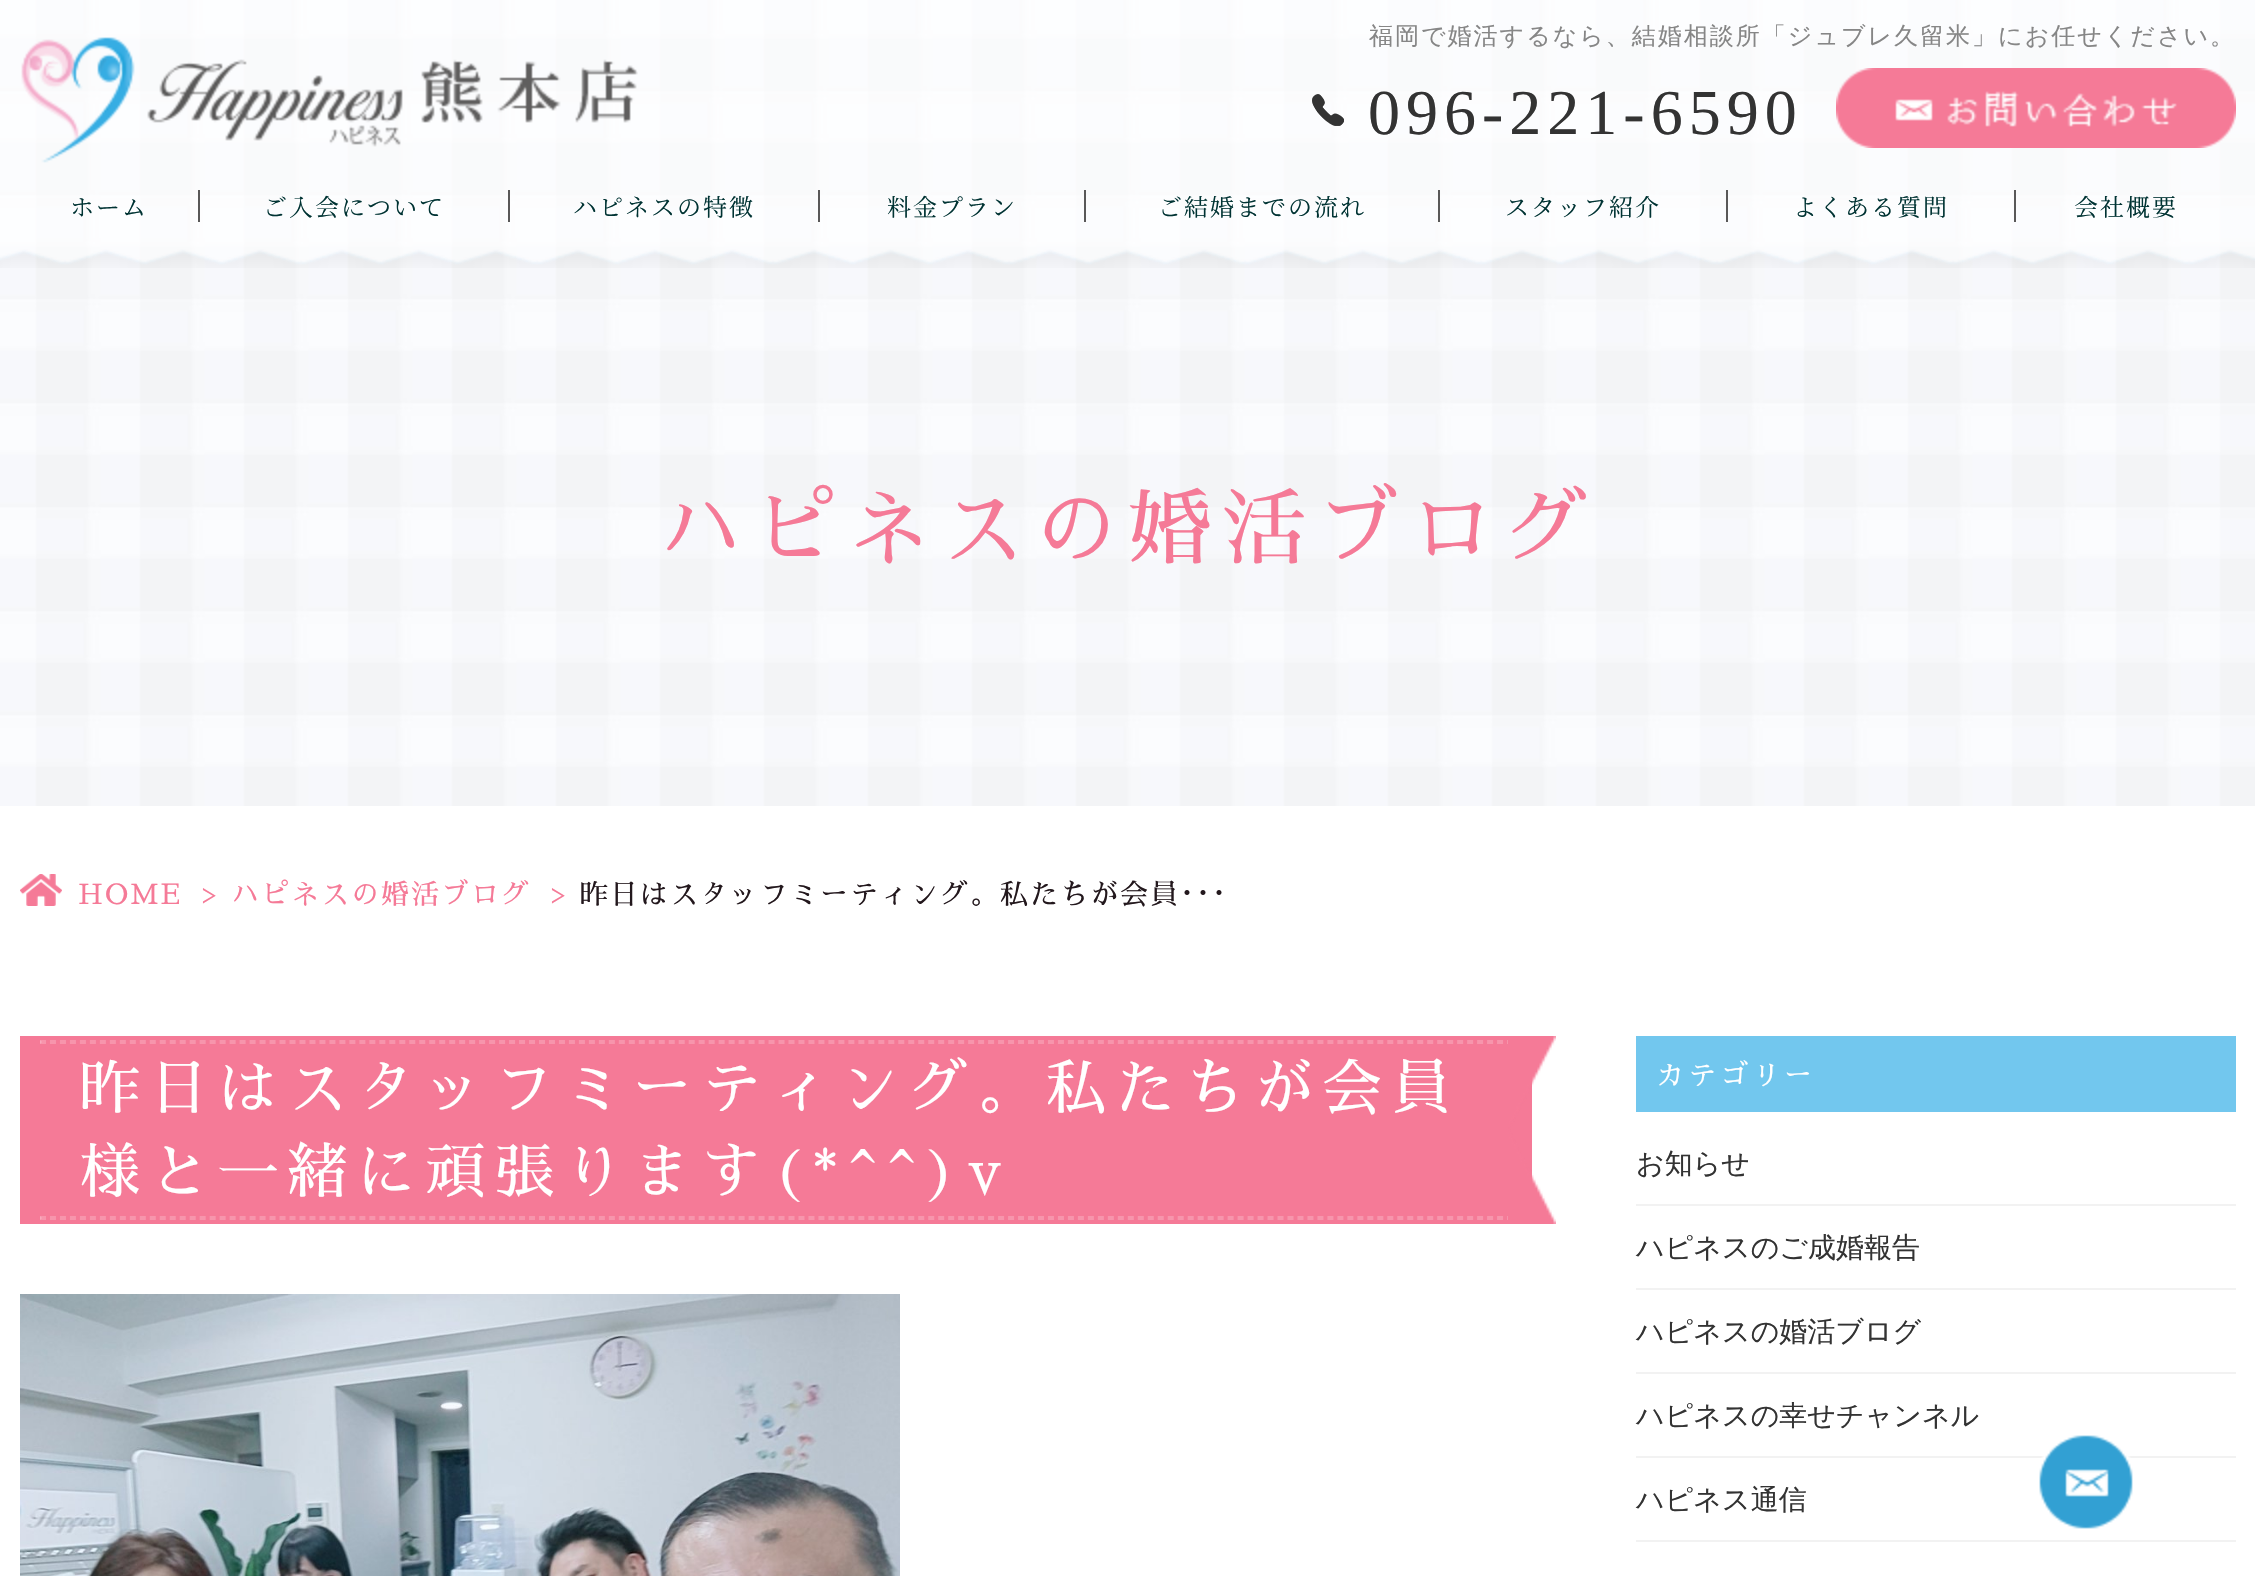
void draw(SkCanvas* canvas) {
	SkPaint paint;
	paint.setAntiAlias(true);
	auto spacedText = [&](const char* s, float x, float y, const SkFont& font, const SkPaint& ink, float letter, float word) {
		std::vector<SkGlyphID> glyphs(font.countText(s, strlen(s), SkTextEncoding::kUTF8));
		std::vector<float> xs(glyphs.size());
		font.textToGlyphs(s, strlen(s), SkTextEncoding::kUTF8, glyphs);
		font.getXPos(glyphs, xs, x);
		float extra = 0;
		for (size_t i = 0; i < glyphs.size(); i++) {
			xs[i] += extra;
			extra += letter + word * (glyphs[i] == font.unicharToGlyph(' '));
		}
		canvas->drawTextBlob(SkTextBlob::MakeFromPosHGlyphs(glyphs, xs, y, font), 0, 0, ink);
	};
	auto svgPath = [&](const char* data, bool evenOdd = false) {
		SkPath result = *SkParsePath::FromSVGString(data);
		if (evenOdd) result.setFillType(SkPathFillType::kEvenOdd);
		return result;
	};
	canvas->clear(0xffffffff);
	canvas->drawImageRect(SkImages::DeferredFromEncodedData(SkData::MakeFromFileName("img5.png")), SkRect::MakeXYWH(0, 0, 2255, 806), SkSamplingOptions());
	paint.setColor(0x80ffffff);
	canvas->drawRect(SkRect::MakeXYWH(0, 0, 2255, 248), paint);
	SkFont f1(fontMgr->matchFamilyStyle("WenQuanYi Zen Hei", SkFontStyle(500, SkFontStyle::kNormal_Width, SkFontStyle::kUpright_Slant)), 24);
	f1.setSubpixel(true);
	paint.setColor(0xff868686);
	spacedText("福岡で婚活するなら、結婚相談所「ジュブレ久留米」にお任せください。", 1369, 44, f1, paint, 2, 0);
	canvas->drawImageRect(SkImages::DeferredFromEncodedData(SkData::MakeFromFileName("img1.png")), SkRect::MakeXYWH(1312, 94, 32, 32), SkSamplingOptions());
	SkFont f2(fontMgr->matchFamilyStyle("Liberation Serif", SkFontStyle::Normal()), 64);
	f2.setSubpixel(true);
	paint.setColor(0xff333333);
	spacedText("096-221-6590", 1368, 134, f2, paint, 6, 0);
	canvas->drawImageRect(SkImages::DeferredFromEncodedData(SkData::MakeFromFileName("img2.png")), SkRect::MakeXYWH(1836, 68, 400, 80), SkSamplingOptions());
	SkFont f3(fontMgr->matchFamilyStyle("Noto Serif JP", SkFontStyle::Normal()), 24);
	f3.setSubpixel(true);
	paint.setColor(0xff003333);
	spacedText("ホーム", 70, 216, f3, paint, 2, 0);
	paint.setColor(0xff595858);
	canvas->drawRect(SkRect::MakeXYWH(198, 190, 2, 32), paint);
	paint.setColor(0xff003333);
	spacedText("ご入会について", 263, 216, f3, paint, 2, 0);
	paint.setColor(0xff595858);
	canvas->drawRect(SkRect::MakeXYWH(508, 190, 2, 32), paint);
	paint.setColor(0xff003333);
	spacedText("ハピネスの特徴", 573, 216, f3, paint, 2, 0);
	paint.setColor(0xff595858);
	canvas->drawRect(SkRect::MakeXYWH(818, 190, 2, 32), paint);
	paint.setColor(0xff003333);
	spacedText("料金プラン", 887, 216, f3, paint, 2, 0);
	paint.setColor(0xff595858);
	canvas->drawRect(SkRect::MakeXYWH(1084, 190, 2, 32), paint);
	paint.setColor(0xff003333);
	spacedText("ご結婚までの流れ", 1158, 216, f3, paint, 2, 0);
	paint.setColor(0xff595858);
	canvas->drawRect(SkRect::MakeXYWH(1438, 190, 2, 32), paint);
	paint.setColor(0xff003333);
	spacedText("スタッフ紹介", 1505, 216, f3, paint, 2, 0);
	paint.setColor(0xff595858);
	canvas->drawRect(SkRect::MakeXYWH(1726, 190, 2, 32), paint);
	paint.setColor(0xff003333);
	spacedText("よくある質問", 1793, 216, f3, paint, 2, 0);
	paint.setColor(0xff595858);
	canvas->drawRect(SkRect::MakeXYWH(2014, 190, 2, 32), paint);
	paint.setColor(0xff003333);
	spacedText("会社概要", 2074, 216, f3, paint, 2, 0);
	canvas->drawImageRect(SkImages::DeferredFromEncodedData(SkData::MakeFromFileName("img3.png")), SkRect::MakeXYWH(21, 37, 617, 126), SkSamplingOptions());
	canvas->drawImageRect(SkImages::DeferredFromEncodedData(SkData::MakeFromFileName("img4.png")), SkRect::MakeXYWH(0, 248, 2255, 20), SkSamplingOptions());
	SkFont f4(fontMgr->matchFamilyStyle("Sawarabi Mincho", SkFontStyle::Normal()), 84);
	f4.setSubpixel(true);
	paint.setColor(0xfff57a97);
	spacedText("ハピネスの婚活ブログ", 658, 558, f4, paint, 10, 0);
	canvas->drawImageRect(SkImages::DeferredFromEncodedData(SkData::MakeFromFileName("img6.png")), SkRect::MakeXYWH(20, 874, 42, 32), SkSamplingOptions());
	SkFont f5(fontMgr->matchFamilyStyle("Sawarabi Mincho", SkFontStyle::Normal()), 28);
	f5.setSubpixel(true);
	spacedText("HOME", 78, 904, f5, paint, 2, 0);
	spacedText(">", 202, 904, f5, paint, -5, 0);
	spacedText("ハピネスの婚活ブログ", 231, 904, f5, paint, 2, 0);
	spacedText(">", 551, 904, f5, paint, -5, 0);
	paint.setColor(0xff23181d);
	spacedText("昨日はスタッフミーティング。私たちが会員･･･", 580, 904, f5, paint, 2, 0);
	paint.setColor(0xfff57a97);
	canvas->drawRect(SkRect::MakeXYWH(20, 1036, 1512, 188), paint);
	paint.setStroke(true);
	paint.setStrokeWidth(2);
	paint.setColor(0xfff795ac);
	paint.setPathEffect(SkDashPathEffect::Make({{6, 3.98f}}, 0));
	canvas->drawPath(svgPath("M40 1041H1512"), paint);
	paint.setPathEffect(nullptr);
	paint.setColor(0x33ffffff);
	paint.setPathEffect(SkDashPathEffect::Make({{6, 3.98f}}, 0));
	canvas->drawPath(svgPath("M40 1043H1512"), paint);
	paint.setPathEffect(nullptr);
	paint.setStroke(false);
	paint.setColor(0xfff9aabd);
	canvas->drawPath(svgPath("M40 1044V1040L42 1042Z"), paint);
	SkFont f6(fontMgr->matchFamilyStyle("Sawarabi Mincho", SkFontStyle::Normal()), 60);
	f6.setSubpixel(true);
	paint.setColor(0xffffffff);
	spacedText("昨日はスタッフミーティング。私たちが会員", 80, 1109, f6, paint, 9, 0);
	paint.setStroke(true);
	paint.setColor(0xfff795ac);
	paint.setPathEffect(SkDashPathEffect::Make({{6, 3.98f}}, 0));
	canvas->drawPath(svgPath("M40 1217H1512"), paint);
	paint.setPathEffect(nullptr);
	paint.setColor(0x33ffffff);
	paint.setPathEffect(SkDashPathEffect::Make({{6, 3.98f}}, 0));
	canvas->drawPath(svgPath("M40 1219H1512"), paint);
	paint.setPathEffect(nullptr);
	canvas->drawImageRect(SkImages::DeferredFromEncodedData(SkData::MakeFromFileName("img7.png")), SkRect::MakeXYWH(1508, 1036, 48, 188), SkSamplingOptions());
	paint.setStroke(false);
	paint.setColor(0xffffffff);
	spacedText("様と一緒に頑張ります(*^^)v", 80, 1193, f6, paint, 9, 0);
	paint.setColor(0xfff9aabd);
	canvas->drawPath(svgPath("M40 1220V1216L42 1218Z"), paint);
	canvas->drawImageRect(SkImages::DeferredFromEncodedData(SkData::MakeFromFileName("img8.png")), SkRect::MakeXYWH(20, 1294, 880, 282), SkSamplingOptions());
	paint.setColor(0xff72c7ee);
	canvas->drawRect(SkRect::MakeXYWH(1636, 1036, 600, 76), paint);
	paint.setColor(0xffffffff);
	spacedText("カテゴリー", 1656, 1085, f5, paint, 4, 0);
	paint.setColor(0xfff2f2f2);
	canvas->drawRect(SkRect::MakeXYWH(1636, 1204, 600, 2), paint);
	SkFont f7(fontMgr->matchFamilyStyle("WenQuanYi Zen Hei", SkFontStyle(500, SkFontStyle::kNormal_Width, SkFontStyle::kUpright_Slant)), 28);
	f7.setSubpixel(true);
	paint.setColor(0xff333333);
	canvas->drawString("お知らせ", 1636, 1173, f7, paint);
	paint.setColor(0xfff2f2f2);
	canvas->drawRect(SkRect::MakeXYWH(1636, 1288, 600, 2), paint);
	paint.setColor(0xff333333);
	canvas->drawString("ハピネスのご成婚報告", 1636, 1257, f7, paint);
	paint.setColor(0xfff2f2f2);
	canvas->drawRect(SkRect::MakeXYWH(1636, 1372, 600, 2), paint);
	paint.setColor(0xff333333);
	canvas->drawString("ハピネスの婚活ブログ", 1636, 1341, f7, paint);
	paint.setColor(0xfff2f2f2);
	canvas->drawRect(SkRect::MakeXYWH(1636, 1456, 600, 2), paint);
	paint.setColor(0xff333333);
	canvas->drawString("ハピネスの幸せチャンネル", 1636, 1425, f7, paint);
	paint.setColor(0xfff2f2f2);
	canvas->drawRect(SkRect::MakeXYWH(1636, 1540, 600, 2), paint);
	paint.setColor(0xff333333);
	canvas->drawString("ハピネス通信", 1636, 1509, f7, paint);
	canvas->drawImageRect(SkImages::DeferredFromEncodedData(SkData::MakeFromFileName("img9.png")), SkRect::MakeXYWH(2039, 1435, 94, 94), SkSamplingOptions());
}
